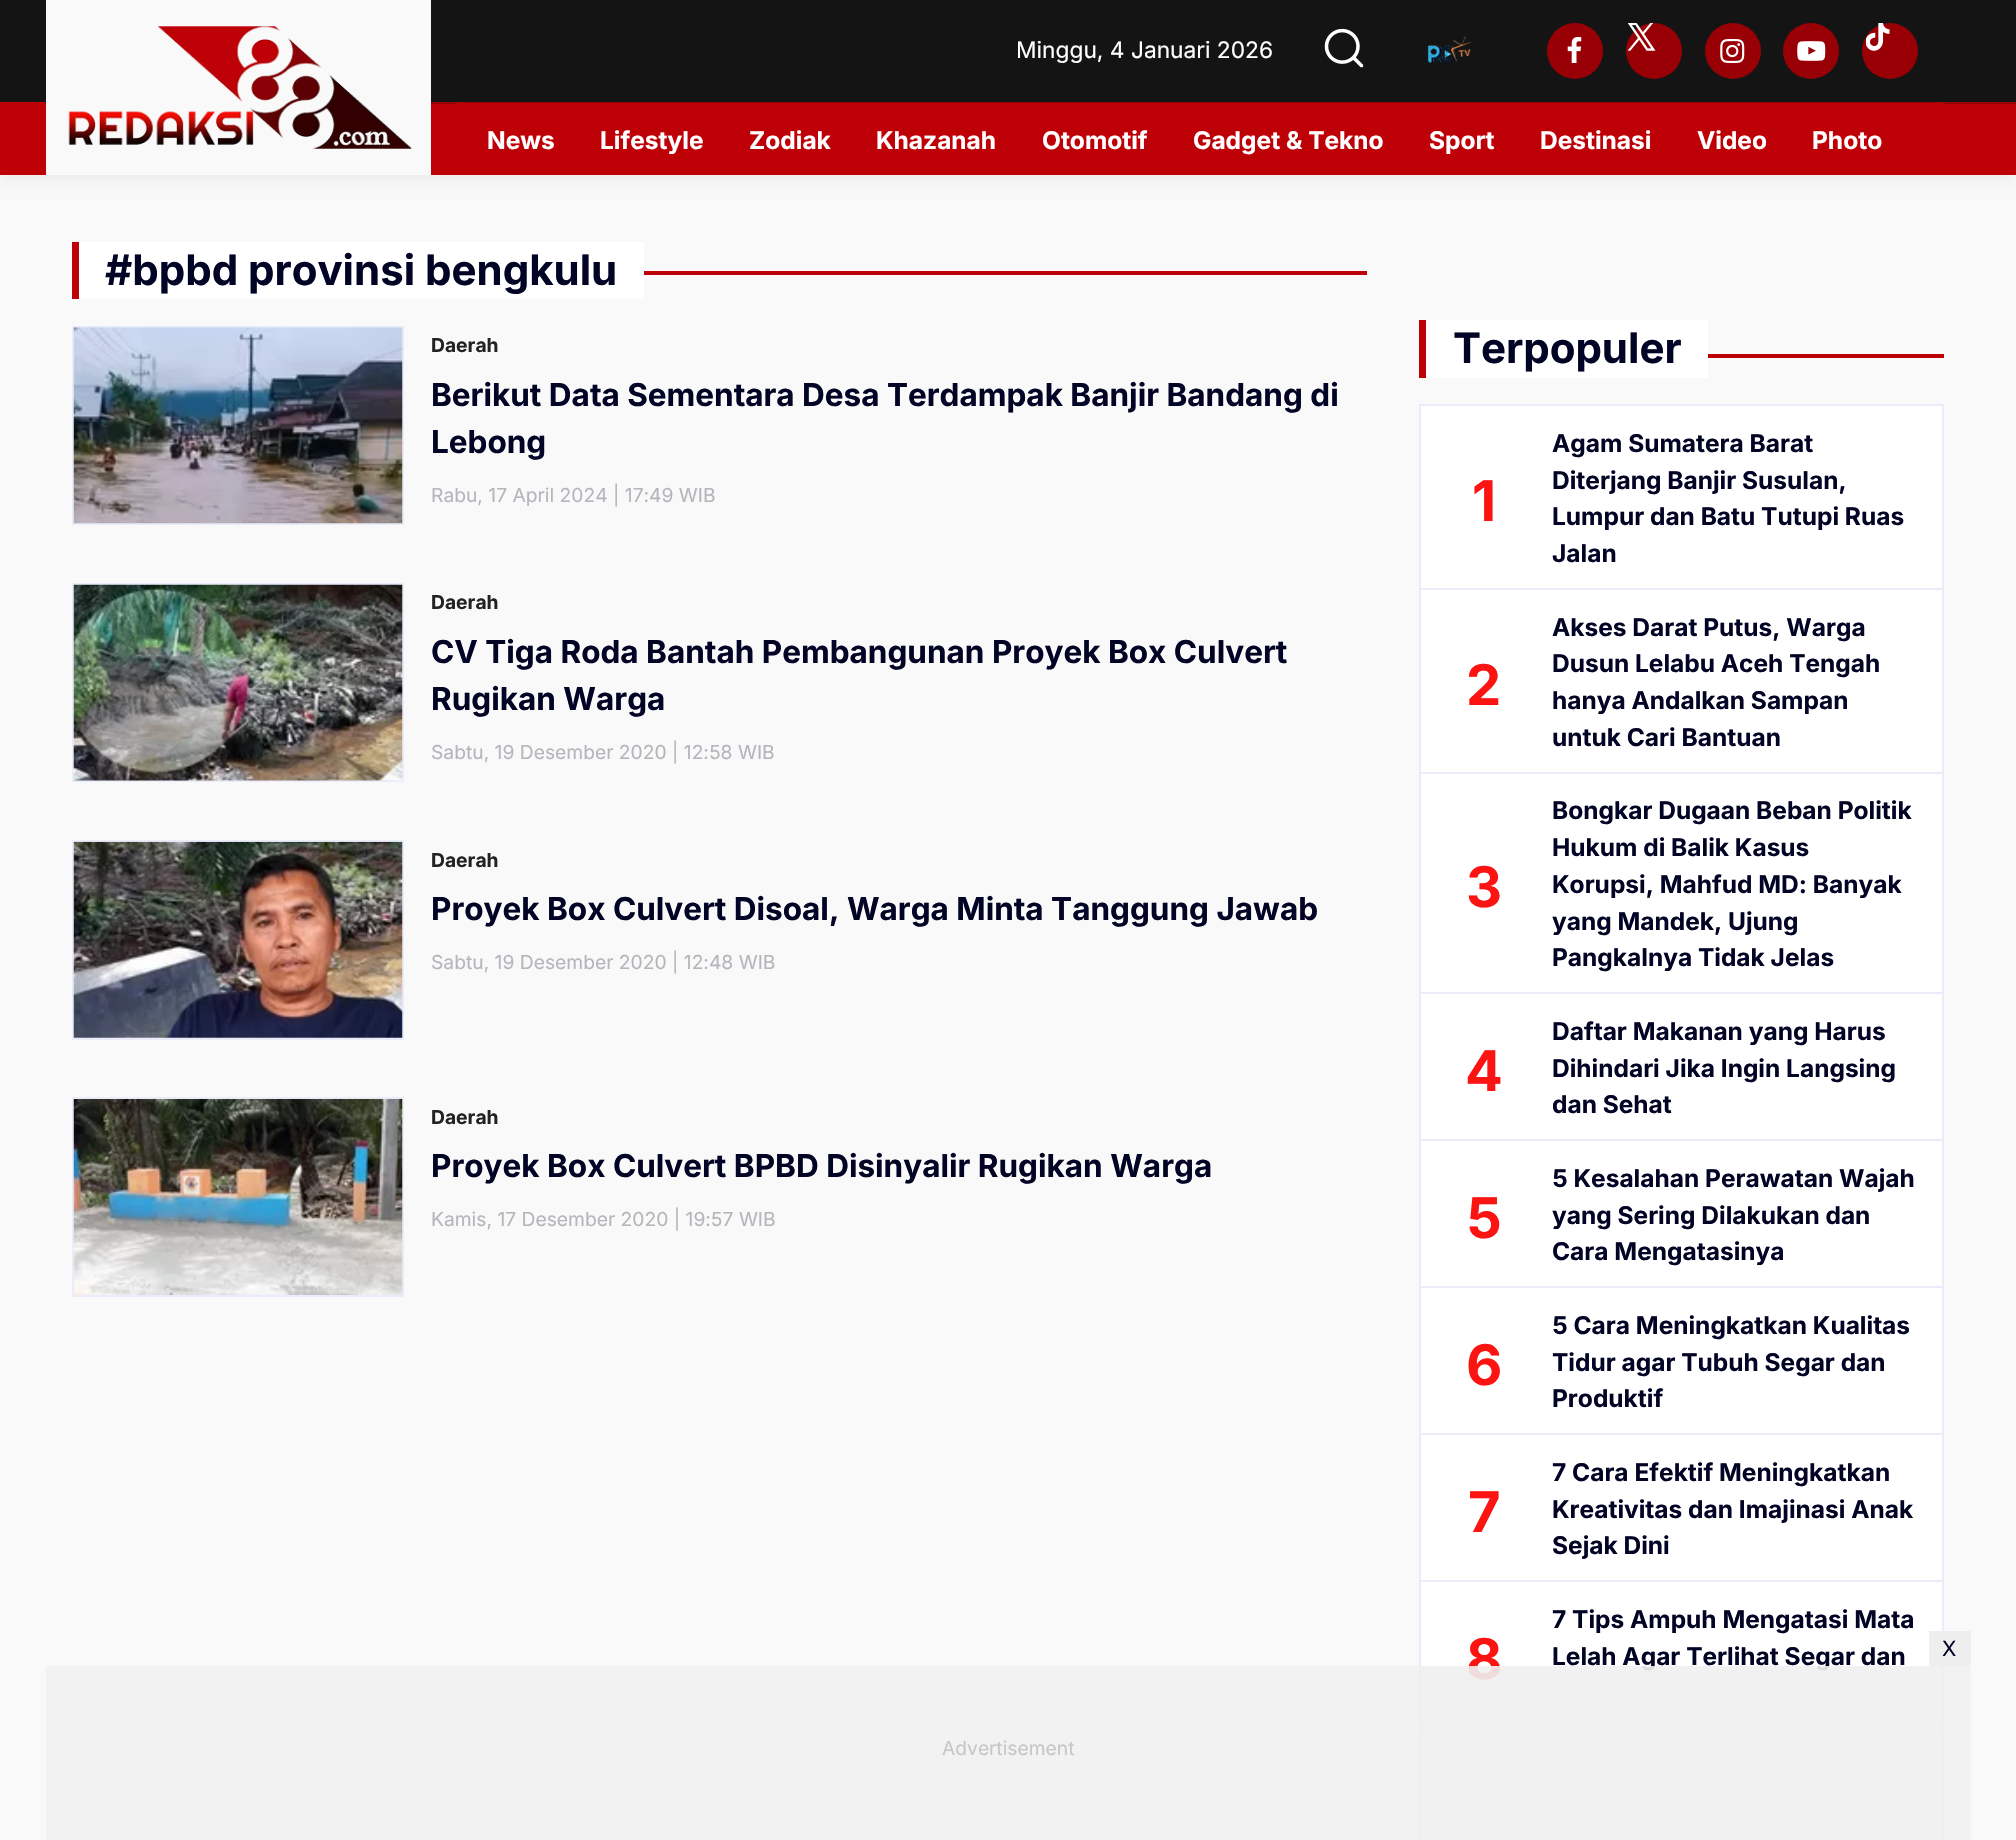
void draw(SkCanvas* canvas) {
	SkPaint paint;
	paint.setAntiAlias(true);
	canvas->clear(0xfff9f9f9);
	paint.setColor(0x0f000000);
	paint.setMaskFilter(SkMaskFilter::MakeBlur(kNormal_SkBlurStyle, 7));
	canvas->drawRect(SkRect::MakeXYWH(0, 4, 2016, 175), paint);
	paint.setMaskFilter(nullptr);
	paint.setColor(0xffbe0107);
	canvas->drawRect(SkRect::MakeXYWH(431, 104, 1585, 71), paint);
	paint.setColor(0xff141414);
	canvas->drawRect(SkRect::MakeXYWH(0, 0, 2016, 102), paint);
	paint.setColor(0xfff9f9f9);
	canvas->drawRect(SkRect::MakeXYWH(46, 0, 385, 175), paint);
	canvas->drawImageRect(SkImages::DeferredFromEncodedData(SkData::MakeFromFileName("img1.png")), SkRect::MakeXYWH(68, 26, 344, 123), SkSamplingOptions());
	SkFont f1(fontMgr->matchFamilyStyle("Inter", SkFontStyle::Normal()), 22.75);
	f1.setSubpixel(true);
	paint.setColor(0xffffffff);
	canvas->drawString("Minggu, 4 Januari 2026", 1016, 58, f1, paint);
	canvas->drawImageRect(SkImages::DeferredFromEncodedData(SkData::MakeFromFileName("img2.png")), SkRect::MakeXYWH(1324, 28, 40, 40), SkSamplingOptions());
	canvas->drawImageRect(SkImages::DeferredFromEncodedData(SkData::MakeFromFileName("img3.png")), SkRect::MakeXYWH(1428, 36, 44, 27), SkSamplingOptions());
	paint.setColor(0xff980005);
	canvas->drawCircle(1575, 51, 28, paint);
	canvas->drawImageRect(SkImages::DeferredFromEncodedData(SkData::MakeFromFileName("img4.png")), SkRect::MakeXYWH(1567, 37, 15, 26), SkSamplingOptions());
	canvas->drawCircle(1654, 51, 28, paint);
	canvas->drawImageRect(SkImages::DeferredFromEncodedData(SkData::MakeFromFileName("img5.png")), SkRect::MakeXYWH(1628, 23, 28, 28), SkSamplingOptions());
	canvas->drawCircle(1733, 51, 28, paint);
	canvas->drawImageRect(SkImages::DeferredFromEncodedData(SkData::MakeFromFileName("img6.png")), SkRect::MakeXYWH(1720, 39, 25, 24), SkSamplingOptions());
	canvas->drawCircle(1811, 51, 28, paint);
	canvas->drawImageRect(SkImages::DeferredFromEncodedData(SkData::MakeFromFileName("img7.png")), SkRect::MakeXYWH(1797, 41, 29, 20), SkSamplingOptions());
	canvas->drawCircle(1890, 51, 28, paint);
	canvas->drawImageRect(SkImages::DeferredFromEncodedData(SkData::MakeFromFileName("img8.png")), SkRect::MakeXYWH(1866, 23, 24, 28), SkSamplingOptions());
	paint.setColor(0xffbe0107);
	canvas->drawRect(SkRect::MakeXYWH(0, 102, 46, 73), paint);
	paint.setColor(0xff980005);
	canvas->drawRect(SkRect::MakeXYWH(431, 102, 1585, 2), paint);
	paint.setColor(0xffbe0107);
	canvas->drawRect(SkRect::MakeXYWH(457, 103, 1487, 1), paint);
	SkFont f2(fontMgr->matchFamilyStyle("Inter", SkFontStyle::Bold()), 24.5);
	f2.setSubpixel(true);
	paint.setColor(0xffffffff);
	canvas->drawString("News", 487, 149, f2, paint);
	canvas->drawString("Lifestyle", 600, 149, f2, paint);
	canvas->drawString("Zodiak", 749, 149, f2, paint);
	canvas->drawString("Khazanah", 876, 149, f2, paint);
	canvas->drawString("Otomotif", 1042, 149, f2, paint);
	canvas->drawString("Gadget & Tekno", 1193, 149, f2, paint);
	canvas->drawString("Sport", 1429, 149, f2, paint);
	canvas->drawString("Destinasi", 1540, 149, f2, paint);
	canvas->drawString("Video", 1697, 149, f2, paint);
	canvas->drawString("Photo", 1812, 149, f2, paint);
	paint.setColor(0xffbe0107);
	canvas->drawRect(SkRect::MakeXYWH(72, 242, 7, 57), paint);
	paint.setColor(0xffffffff);
	canvas->drawRect(SkRect::MakeXYWH(79, 242, 565, 57), paint);
	SkFont f3(fontMgr->matchFamilyStyle("Inter", SkFontStyle::Bold()), 42);
	f3.setSubpixel(true);
	paint.setColor(0xff020425);
	canvas->drawString("#bpbd provinsi bengkulu", 105, 285, f3, paint);
	paint.setColor(0xffbe0107);
	canvas->drawRect(SkRect::MakeXYWH(644, 271, 723, 4), paint);
	paint.setStroke(true);
	paint.setStrokeWidth(2);
	paint.setColor(0xffeaecfa);
	canvas->drawRect(SkRect::MakeXYWH(73, 327, 330, 197), paint);
	canvas->drawImageRect(SkImages::DeferredFromEncodedData(SkData::MakeFromFileName("img9.png")), SkRect::MakeXYWH(73, 327, 330, 197), SkSamplingOptions());
	SkFont f4(fontMgr->matchFamilyStyle("Inter", SkFontStyle::Bold()), 19.25);
	f4.setSubpixel(true);
	paint.setStroke(false);
	paint.setColor(0xff222222);
	canvas->drawString("Daerah", 431, 352, f4, paint);
	SkFont f5(fontMgr->matchFamilyStyle("Inter", SkFontStyle::Bold()), 31.5);
	f5.setSubpixel(true);
	paint.setColor(0xff020425);
	canvas->drawString("Berikut Data Sementara Desa Terdampak Banjir Bandang di", 431, 406, f5, paint);
	canvas->drawString("Lebong", 431, 453, f5, paint);
	SkFont f6(fontMgr->matchFamilyStyle("Inter", SkFontStyle::Normal()), 19.25);
	f6.setSubpixel(true);
	paint.setColor(0xffb4b6bb);
	canvas->drawString("Rabu, 17 April 2024 | 17:49 WIB", 431, 502, f6, paint);
	paint.setStroke(true);
	paint.setColor(0xffeaecfa);
	canvas->drawRect(SkRect::MakeXYWH(73, 584, 330, 197), paint);
	canvas->drawImageRect(SkImages::DeferredFromEncodedData(SkData::MakeFromFileName("img10.png")), SkRect::MakeXYWH(73, 584, 330, 197), SkSamplingOptions());
	paint.setStroke(false);
	paint.setColor(0xff222222);
	canvas->drawString("Daerah", 431, 609, f4, paint);
	paint.setColor(0xff020425);
	canvas->drawString("CV Tiga Roda Bantah Pembangunan Proyek Box Culvert", 431, 663, f5, paint);
	canvas->drawString("Rugikan Warga", 431, 710, f5, paint);
	paint.setColor(0xffb4b6bb);
	canvas->drawString("Sabtu, 19 Desember 2020 | 12:58 WIB", 431, 759, f6, paint);
	paint.setStroke(true);
	paint.setColor(0xffeaecfa);
	canvas->drawRect(SkRect::MakeXYWH(73, 841, 330, 198), paint);
	canvas->drawImageRect(SkImages::DeferredFromEncodedData(SkData::MakeFromFileName("img11.png")), SkRect::MakeXYWH(73, 841, 330, 197), SkSamplingOptions());
	paint.setStroke(false);
	paint.setColor(0xff222222);
	canvas->drawString("Daerah", 431, 867, f4, paint);
	paint.setColor(0xff020425);
	canvas->drawString("Proyek Box Culvert Disoal, Warga Minta Tanggung Jawab", 431, 920, f5, paint);
	paint.setColor(0xffb4b6bb);
	canvas->drawString("Sabtu, 19 Desember 2020 | 12:48 WIB", 431, 969, f6, paint);
	paint.setStroke(true);
	paint.setColor(0xffeaecfa);
	canvas->drawRect(SkRect::MakeXYWH(73, 1098, 330, 198), paint);
	canvas->drawImageRect(SkImages::DeferredFromEncodedData(SkData::MakeFromFileName("img12.png")), SkRect::MakeXYWH(73, 1099, 330, 196), SkSamplingOptions());
	paint.setStroke(false);
	paint.setColor(0xff222222);
	canvas->drawString("Daerah", 431, 1124, f4, paint);
	paint.setColor(0xff020425);
	canvas->drawString("Proyek Box Culvert BPBD Disinyalir Rugikan Warga", 431, 1177, f5, paint);
	paint.setColor(0xffb4b6bb);
	canvas->drawString("Kamis, 17 Desember 2020 | 19:57 WIB", 431, 1226, f6, paint);
	paint.setColor(0xffbe0107);
	canvas->drawRect(SkRect::MakeXYWH(1419, 320, 7, 58), paint);
	paint.setColor(0xffffffff);
	canvas->drawRect(SkRect::MakeXYWH(1426, 320, 282, 58), paint);
	paint.setColor(0xff020425);
	canvas->drawString("Terpopuler", 1453, 363, f3, paint);
	paint.setColor(0xffbe0107);
	canvas->drawRect(SkRect::MakeXYWH(1708, 354, 236, 4), paint);
	paint.setColor(0xffffffff);
	canvas->drawRect(SkRect::MakeXYWH(1420, 405, 523, 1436), paint);
	paint.setStroke(true);
	paint.setColor(0xffeaecfa);
	canvas->drawRect(SkRect::MakeXYWH(1420, 405, 523, 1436), paint);
	paint.setStroke(false);
	canvas->drawRect(SkRect::MakeXYWH(1421, 588, 522, 2), paint);
	SkFont f7(fontMgr->matchFamilyStyle("Inter", SkFontStyle::Bold()), 56);
	f7.setSubpixel(true);
	paint.setColor(0xfffc1413);
	canvas->drawString("1", 1472, 521, f7, paint);
	paint.setColor(0xff020425);
	canvas->drawString("Agam Sumatera Barat", 1552, 452, f2, paint);
	canvas->drawString("Diterjang Banjir Susulan,", 1552, 489, f2, paint);
	canvas->drawString("Lumpur dan Batu Tutupi Ruas", 1552, 525, f2, paint);
	canvas->drawString("Jalan", 1552, 562, f2, paint);
	paint.setColor(0xffeaecfa);
	canvas->drawRect(SkRect::MakeXYWH(1421, 772, 522, 2), paint);
	paint.setColor(0xfffc1413);
	canvas->drawString("2", 1466, 705, f7, paint);
	paint.setColor(0xff020425);
	canvas->drawString("Akses Darat Putus, Warga", 1552, 636, f2, paint);
	canvas->drawString("Dusun Lelabu Aceh Tengah", 1552, 672, f2, paint);
	canvas->drawString("hanya Andalkan Sampan", 1552, 709, f2, paint);
	canvas->drawString("untuk Cari Bantuan", 1552, 746, f2, paint);
	paint.setColor(0xffeaecfa);
	canvas->drawRect(SkRect::MakeXYWH(1421, 992, 522, 2), paint);
	paint.setColor(0xfffc1413);
	canvas->drawString("3", 1466, 907, f7, paint);
	paint.setColor(0xff020425);
	canvas->drawString("Bongkar Dugaan Beban Politik", 1552, 819, f2, paint);
	canvas->drawString("Hukum di Balik Kasus", 1552, 856, f2, paint);
	canvas->drawString("Korupsi, Mahfud MD: Banyak", 1552, 893, f2, paint);
	canvas->drawString("yang Mandek, Ujung", 1552, 930, f2, paint);
	canvas->drawString("Pangkalnya Tidak Jelas", 1552, 966, f2, paint);
	paint.setColor(0xffeaecfa);
	canvas->drawRect(SkRect::MakeXYWH(1421, 1139, 522, 2), paint);
	paint.setColor(0xfffc1413);
	canvas->drawString("4", 1465, 1091, f7, paint);
	paint.setColor(0xff020425);
	canvas->drawString("Daftar Makanan yang Harus", 1552, 1040, f2, paint);
	canvas->drawString("Dihindari Jika Ingin Langsing", 1552, 1077, f2, paint);
	canvas->drawString("dan Sehat", 1552, 1113, f2, paint);
	paint.setColor(0xffeaecfa);
	canvas->drawRect(SkRect::MakeXYWH(1421, 1286, 522, 2), paint);
	paint.setColor(0xfffc1413);
	canvas->drawString("5", 1466, 1238, f7, paint);
	paint.setColor(0xff020425);
	canvas->drawString("5 Kesalahan Perawatan Wajah", 1552, 1187, f2, paint);
	canvas->drawString("yang Sering Dilakukan dan", 1552, 1224, f2, paint);
	canvas->drawString("Cara Mengatasinya", 1552, 1260, f2, paint);
	paint.setColor(0xffeaecfa);
	canvas->drawRect(SkRect::MakeXYWH(1421, 1433, 522, 2), paint);
	paint.setColor(0xfffc1413);
	canvas->drawString("6", 1466, 1385, f7, paint);
	paint.setColor(0xff020425);
	canvas->drawString("5 Cara Meningkatkan Kualitas", 1552, 1334, f2, paint);
	canvas->drawString("Tidur agar Tubuh Segar dan", 1552, 1371, f2, paint);
	canvas->drawString("Produktif", 1552, 1407, f2, paint);
	paint.setColor(0xffeaecfa);
	canvas->drawRect(SkRect::MakeXYWH(1421, 1580, 522, 2), paint);
	paint.setColor(0xfffc1413);
	canvas->drawString("7", 1468, 1532, f7, paint);
	paint.setColor(0xff020425);
	canvas->drawString("7 Cara Efektif Meningkatkan", 1552, 1481, f2, paint);
	canvas->drawString("Kreativitas dan Imajinasi Anak", 1552, 1518, f2, paint);
	canvas->drawString("Sejak Dini", 1552, 1554, f2, paint);
	paint.setColor(0xffeaecfa);
	canvas->drawRect(SkRect::MakeXYWH(1421, 1727, 522, 2), paint);
	paint.setColor(0xfffc1413);
	canvas->drawString("8", 1466, 1679, f7, paint);
	paint.setColor(0xff020425);
	canvas->drawString("7 Tips Ampuh Mengatasi Mata", 1552, 1628, f2, paint);
	canvas->drawString("Lelah Agar Terlihat Segar dan", 1552, 1665, f2, paint);
	paint.setColor(0xb3f0f0f0);
	canvas->drawRect(SkRect::MakeXYWH(46, 1666, 1925, 174), paint);
	paint.setColor(0xffeeeeee);
	canvas->drawRect(SkRect::MakeXYWH(1929, 1631, 42, 35), paint);
	SkFont f8(fontMgr->matchFamilyStyle("Inter", SkFontStyle::Normal()), 21);
	f8.setSubpixel(true);
	paint.setColor(0xff020425);
	canvas->drawString("X", 1942, 1656, f8, paint);
	paint.setColor(0xb3f0f0f0);
	canvas->drawRect(SkRect::MakeXYWH(1421, 1666, 521, 174), paint);
	paint.setColor(0xffc7c7c7);
	canvas->drawString("Advertisement", 942, 1755, f6, paint);
}
